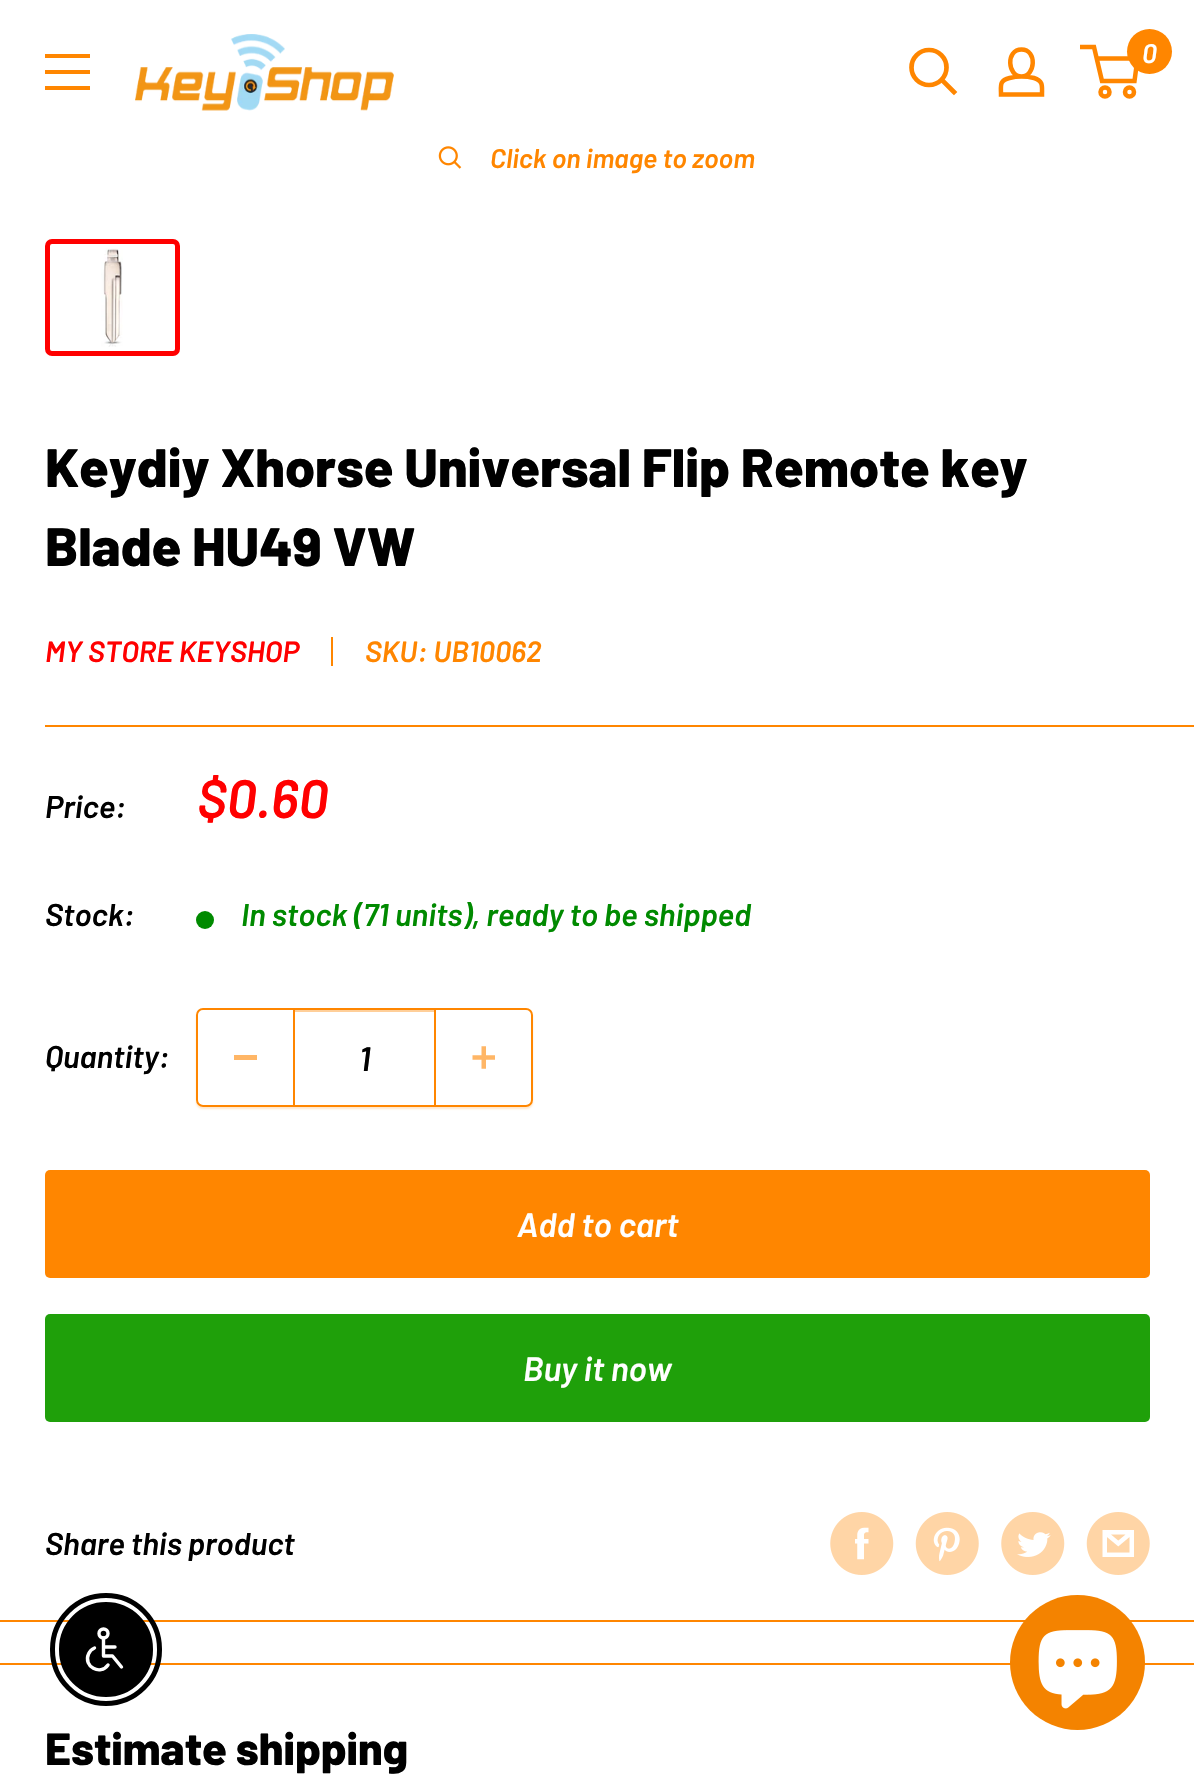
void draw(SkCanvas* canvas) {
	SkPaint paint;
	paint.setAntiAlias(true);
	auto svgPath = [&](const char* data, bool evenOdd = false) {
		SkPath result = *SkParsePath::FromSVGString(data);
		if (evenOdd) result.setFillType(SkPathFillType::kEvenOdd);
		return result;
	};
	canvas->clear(0xffffffff);
	paint.setColor(0xffff8600);
	canvas->drawPath(svgPath("M45 86H90V90H45ZM45 54H90V58H45ZM45 70H90V74H45Z", true), paint);
	canvas->drawImageRect(SkImages::DeferredFromEncodedData(SkData::MakeFromFileName("img1.png")), SkRect::MakeXYWH(135, 34, 259, 77), SkSamplingOptions());
	paint.setStroke(true);
	paint.setStrokeWidth(4.7);
	paint.setStrokeCap(SkPaint::kSquare_Cap);
	canvas->drawPath(svgPath("M954 92L942 80"), paint);
	paint.setStrokeCap(SkPaint::kButt_Cap);
	canvas->drawCircle(929, 67.5, 17.5, paint);
	paint.setStrokeWidth(4.5);
	canvas->drawPath(svgPath("M1021.5 76.5C1025.5 76.5 1030 77 1034 78C1043.5 81 1042 86 1042 94.5H1001C1001 85.5 999 80.5 1009.5 78C1013.5 77 1017.5 76.5 1021.5 76.5ZM1021.5 76.5C1007.5 76.5 1005.5 49.5 1021.5 49.5C1037.5 49.5 1035.5 76.5 1021.5 76.5Z"), paint);
	canvas->drawCircle(1105, 92, 4.5, paint);
	canvas->drawCircle(1129.5, 92, 4.5, paint);
	canvas->drawPath(svgPath("M1096.5 58.5H1137.5L1134.5 81H1102L1094 47H1080"), paint);
	paint.setStroke(false);
	canvas->drawCircle(1149.5, 51.5, 22.5, paint);
	SkFont f1(fontMgr->matchFamilyStyle("Barlow", SkFontStyle(600, SkFontStyle::kNormal_Width, SkFontStyle::kItalic_Slant)), 27);
	f1.setSubpixel(true);
	paint.setColor(0xffffffff);
	canvas->drawString("0", 1142, 63, f1, paint);
	canvas->drawImageRect(SkImages::DeferredFromEncodedData(SkData::MakeFromFileName("img2.png")), SkRect::MakeXYWH(438, 146, 24, 23), SkSamplingOptions());
	paint.setColor(0xffff8600);
	canvas->drawString("Click on image to zoom", 490, 168, f1, paint);
	paint.setStroke(true);
	paint.setStrokeWidth(5);
	paint.setColor(0xffff0000);
	canvas->drawRoundRect(SkRect::MakeXYWH(47.5, 241.5, 130, 112), 4.5, 4.5, paint);
	canvas->drawImageRect(SkImages::DeferredFromEncodedData(SkData::MakeFromFileName("img3.png")), SkRect::MakeXYWH(101, 248, 22, 99), SkSamplingOptions());
	paint.setStroke(false);
	paint.setColor(0xffff8600);
	canvas->drawRect(SkRect::MakeXYWH(0, 1620, 1194, 2), paint);
	SkFont f2(fontMgr->matchFamilyStyle("Barlow", SkFontStyle(800, SkFontStyle::kNormal_Width, SkFontStyle::kUpright_Slant)), 54);
	f2.setSubpixel(true);
	paint.setColor(0xff000000);
	canvas->drawString("Keydiy Xhorse Universal Flip Remote key", 45, 487, f2, paint);
	canvas->drawString("Blade HU49 VW", 45, 566, f2, paint);
	SkFont f3(fontMgr->matchFamilyStyle("Barlow", SkFontStyle(600, SkFontStyle::kNormal_Width, SkFontStyle::kItalic_Slant)), 29.25);
	f3.setSubpixel(true);
	paint.setColor(0xffff0000);
	canvas->drawString("MY STORE KEYSHOP", 45, 662, f3, paint);
	paint.setColor(0xffff8600);
	canvas->drawRect(SkRect::MakeXYWH(331, 637, 2, 29), paint);
	canvas->drawString("SKU: UB10062", 365, 662, f3, paint);
	canvas->drawRect(SkRect::MakeXYWH(45, 725, 1149, 2), paint);
	SkFont f4(fontMgr->matchFamilyStyle("Barlow", SkFontStyle(600, SkFontStyle::kNormal_Width, SkFontStyle::kItalic_Slant)), 31.5);
	f4.setSubpixel(true);
	paint.setColor(0xff000000);
	canvas->drawString("Price:", 45, 818, f4, paint);
	SkFont f5(fontMgr->matchFamilyStyle("Barlow", SkFontStyle(600, SkFontStyle::kNormal_Width, SkFontStyle::kItalic_Slant)), 54);
	f5.setSubpixel(true);
	paint.setColor(0xffff0000);
	canvas->drawString("$0.60", 197, 818, f5, paint);
	paint.setColor(0xff000000);
	canvas->drawString("Stock:", 45, 926, f4, paint);
	paint.setColor(0xff008a00);
	canvas->drawCircle(205, 920, 9, paint);
	canvas->drawString("In stock (71 units), ready to be shipped", 241, 926, f4, paint);
	paint.setColor(0xff000000);
	canvas->drawString("Quantity:", 45, 1068, f4, paint);
	canvas->save();
	canvas->clipPath(svgPath("M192 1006H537V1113H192ZM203 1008H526C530 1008 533 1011 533 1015V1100C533 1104 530 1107 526 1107H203C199 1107 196 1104 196 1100V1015C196 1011 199 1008 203 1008Z", true), true);
	paint.setColor(0x33ff8600);
	paint.setMaskFilter(SkMaskFilter::MakeBlur(kNormal_SkBlurStyle, 1));
	canvas->drawRoundRect(SkRect::MakeXYWH(196, 1010, 337, 99), 7, 7, paint);
	paint.setMaskFilter(nullptr);
	canvas->restore();
	paint.setStroke(true);
	paint.setStrokeWidth(2);
	paint.setColor(0xffff8600);
	canvas->drawRoundRect(SkRect::MakeXYWH(197, 1009, 335, 97), 6, 6, paint);
	paint.setStroke(false);
	paint.setColor(0xffffb666);
	canvas->drawRect(SkRect::MakeXYWH(234, 1055, 23, 5), paint);
	paint.setColor(0xffffcf99);
	canvas->drawRect(SkRect::MakeXYWH(295, 1010, 139, 2), paint);
	paint.setColor(0xffff8600);
	canvas->drawRect(SkRect::MakeXYWH(434, 1010, 2, 95), paint);
	canvas->drawRect(SkRect::MakeXYWH(293, 1010, 2, 95), paint);
	SkFont f6(fontMgr->matchFamilyStyle("Barlow", SkFontStyle(600, SkFontStyle::kNormal_Width, SkFontStyle::kItalic_Slant)), 33.75);
	f6.setSubpixel(true);
	paint.setColor(0xff000000);
	canvas->drawString("1", 359, 1071, f6, paint);
	canvas->drawImageRect(SkImages::DeferredFromEncodedData(SkData::MakeFromFileName("img4.png")), SkRect::MakeXYWH(472, 1046, 23, 23), SkSamplingOptions());
	paint.setColor(0xffff8600);
	canvas->drawRoundRect(SkRect::MakeXYWH(45, 1170, 1105, 108), 5, 5, paint);
	paint.setColor(0xffffffff);
	canvas->drawString("Add to cart", 517, 1237, f6, paint);
	paint.setColor(0xff1fa00a);
	canvas->drawRoundRect(SkRect::MakeXYWH(45, 1314, 1105, 108), 5, 5, paint);
	paint.setColor(0xffffffff);
	canvas->drawString("Buy it now", 523, 1381, f6, paint);
	paint.setColor(0xff000000);
	canvas->drawString("Share this product", 45, 1555, f4, paint);
	canvas->drawImageRect(SkImages::DeferredFromEncodedData(SkData::MakeFromFileName("img5.png")), SkRect::MakeXYWH(830, 1512, 64, 63), SkSamplingOptions());
	canvas->drawImageRect(SkImages::DeferredFromEncodedData(SkData::MakeFromFileName("img6.png")), SkRect::MakeXYWH(915, 1512, 64, 63), SkSamplingOptions());
	canvas->drawImageRect(SkImages::DeferredFromEncodedData(SkData::MakeFromFileName("img7.png")), SkRect::MakeXYWH(1001, 1512, 64, 63), SkSamplingOptions());
	canvas->drawImageRect(SkImages::DeferredFromEncodedData(SkData::MakeFromFileName("img8.png")), SkRect::MakeXYWH(1086, 1512, 64, 63), SkSamplingOptions());
	paint.setColor(0xffff8600);
	canvas->drawRect(SkRect::MakeXYWH(0, 1663, 1194, 2), paint);
	SkFont f7(fontMgr->matchFamilyStyle("Barlow", SkFontStyle(800, SkFontStyle::kNormal_Width, SkFontStyle::kUpright_Slant)), 45);
	f7.setSubpixel(true);
	paint.setColor(0xff000000);
	canvas->drawString("Estimate shipping", 45, 1765, f7, paint);
	paint.setStroke(true);
	paint.setStrokeWidth(5);
	canvas->drawRoundRect(SkRect::MakeXYWH(52.5, 1595.5, 107, 108), 53.5, 53.5, paint);
	paint.setStroke(false);
	canvas->drawRoundRect(SkRect::MakeXYWH(60, 1603, 92, 93), 46, 46, paint);
	paint.setStroke(true);
	paint.setStrokeWidth(2);
	canvas->drawRoundRect(SkRect::MakeXYWH(60, 1603, 92, 93), 46, 46, paint);
	paint.setStrokeWidth(3.4);
	paint.setColor(0xffffffff);
	canvas->drawCircle(103.5, 1633.5, 4.5, paint);
	paint.setStrokeCap(SkPaint::kRound_Cap);
	paint.setStrokeJoin(SkPaint::kRound_Join);
	canvas->drawPath(svgPath("M103.5 1638V1656H112.5L121.5 1667M103.5 1647H115M94.5 1648C92 1649 89.5 1651.5 88.5 1654C83 1666.5 100.5 1676 108 1665"), paint);
	paint.setStroke(false);
	paint.setColor(0xfff48300);
	canvas->drawCircle(1077.5, 1662.5, 67.5, paint);
	canvas->drawImageRect(SkImages::DeferredFromEncodedData(SkData::MakeFromFileName("img9.png")), SkRect::MakeXYWH(1038, 1630, 79, 79), SkSamplingOptions());
}
